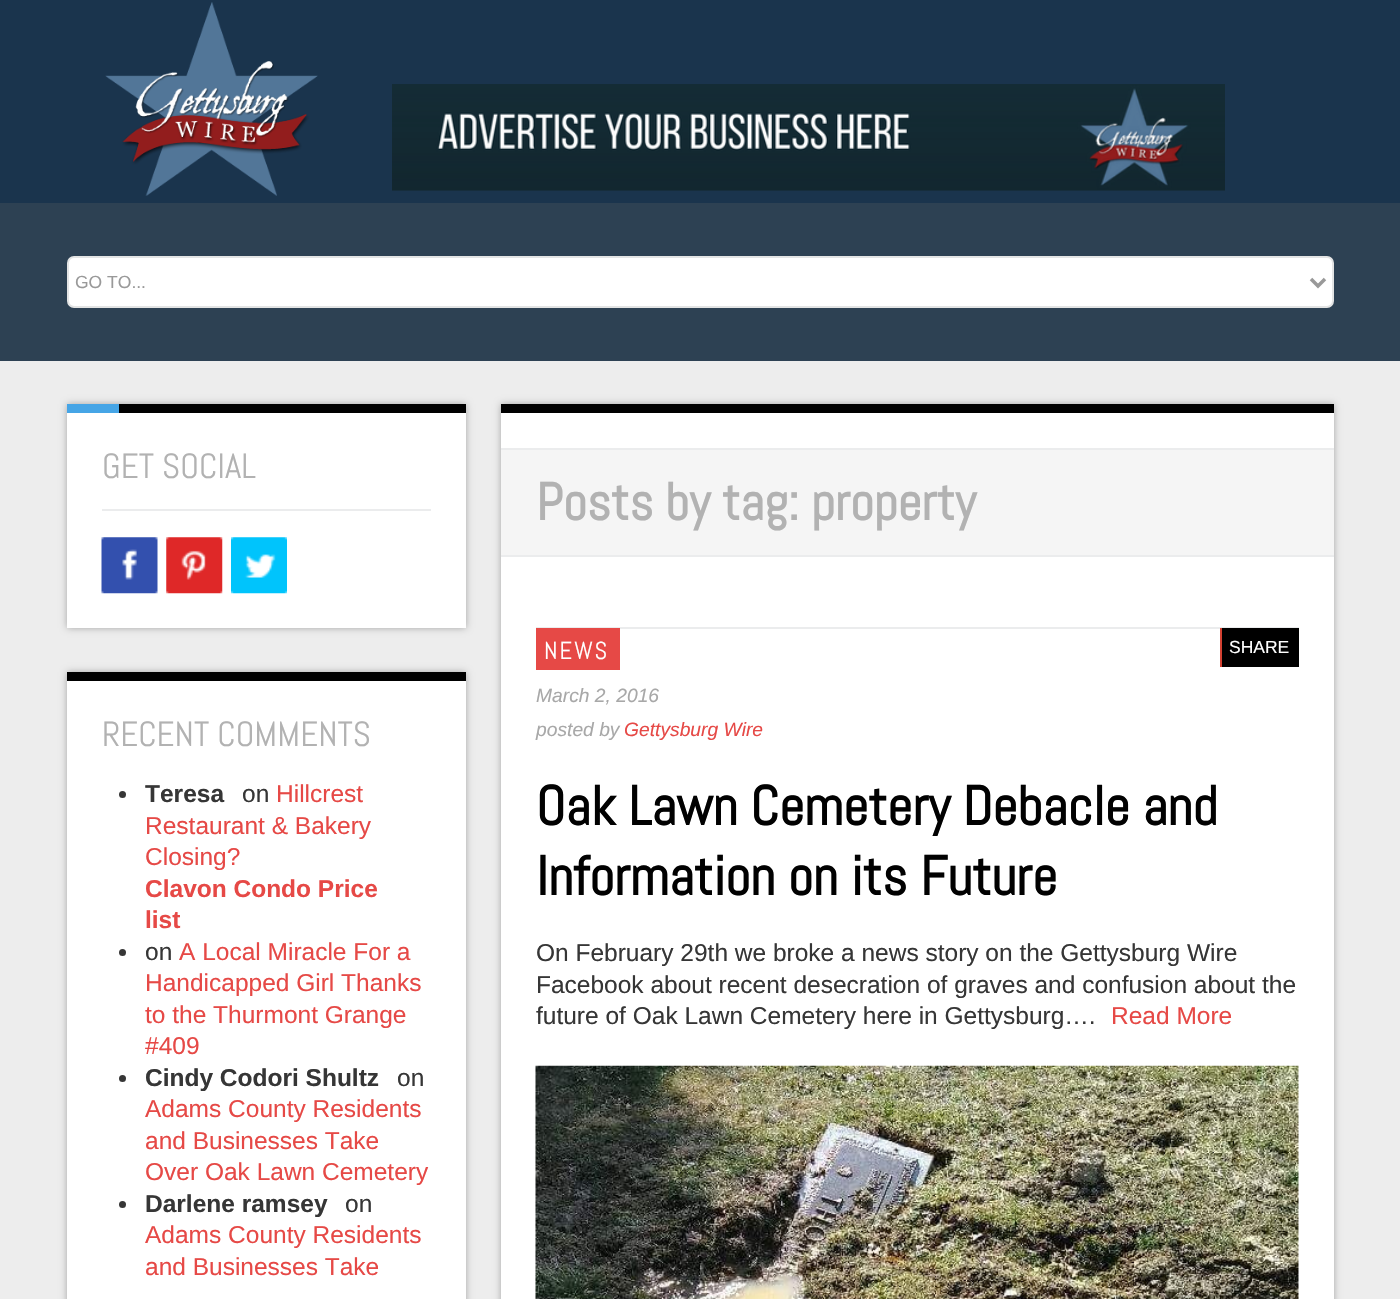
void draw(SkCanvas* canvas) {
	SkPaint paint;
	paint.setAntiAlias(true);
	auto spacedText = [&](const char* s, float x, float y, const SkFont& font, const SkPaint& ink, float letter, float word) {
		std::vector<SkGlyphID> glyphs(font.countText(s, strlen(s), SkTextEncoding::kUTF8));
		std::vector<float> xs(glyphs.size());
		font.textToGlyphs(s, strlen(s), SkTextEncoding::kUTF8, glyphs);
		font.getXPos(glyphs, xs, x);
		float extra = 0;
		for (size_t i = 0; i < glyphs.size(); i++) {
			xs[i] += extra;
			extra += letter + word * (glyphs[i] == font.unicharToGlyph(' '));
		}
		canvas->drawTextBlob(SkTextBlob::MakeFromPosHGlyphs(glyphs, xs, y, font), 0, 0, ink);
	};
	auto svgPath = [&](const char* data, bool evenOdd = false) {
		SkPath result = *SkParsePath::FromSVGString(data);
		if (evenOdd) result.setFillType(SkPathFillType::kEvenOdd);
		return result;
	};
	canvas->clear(0xffededed);
	paint.setColor(0xff1a344d);
	canvas->drawRect(SkRect::MakeXYWH(0, 0, 1400, 203), paint);
	canvas->drawImageRect(SkImages::DeferredFromEncodedData(SkData::MakeFromFileName("img1.png")), SkRect::MakeXYWH(105, 2, 213, 194), SkSamplingOptions());
	canvas->drawImageRect(SkImages::DeferredFromEncodedData(SkData::MakeFromFileName("img2.png")), SkRect::MakeXYWH(392, 84, 833, 107), SkSamplingOptions());
	paint.setColor(0xff2d4153);
	canvas->drawRect(SkRect::MakeXYWH(0, 203, 1400, 158), paint);
	paint.setColor(0xffffffff);
	canvas->drawRoundRect(SkRect::MakeXYWH(68, 257, 1265, 50), 6, 6, paint);
	paint.setStroke(true);
	paint.setStrokeWidth(2);
	paint.setColor(0xffe3e4e4);
	canvas->drawRoundRect(SkRect::MakeXYWH(68, 257, 1265, 50), 6, 6, paint);
	paint.setStrokeWidth(3.5);
	paint.setColor(0xff999999);
	canvas->drawPath(svgPath("M1311 279L1318 286L1325 279"), paint);
	SkFont f1(fontMgr->matchFamilyStyle("Liberation Sans", SkFontStyle::Normal()), 17.5);
	f1.setSubpixel(true);
	paint.setStroke(false);
	canvas->drawString("GO TO...", 75, 288, f1, paint);
	paint.setColor(0x4d000000);
	paint.setMaskFilter(SkMaskFilter::MakeBlur(kNormal_SkBlurStyle, 3.5));
	canvas->drawRect(SkRect::MakeXYWH(67, 404, 399, 224), paint);
	paint.setMaskFilter(nullptr);
	paint.setColor(0xffffffff);
	canvas->drawRect(SkRect::MakeXYWH(67, 413, 399, 215), paint);
	paint.setColor(0xff000000);
	canvas->drawRect(SkRect::MakeXYWH(119, 404, 347, 9), paint);
	paint.setColor(0xff46a5e6);
	canvas->drawRect(SkRect::MakeXYWH(67, 404, 52, 9), paint);
	SkFont f2(fontMgr->matchFamilyStyle("Abel", SkFontStyle::Normal()), 35);
	f2.setSubpixel(true);
	paint.setColor(0xffb2b2b2);
	canvas->drawString("GET SOCIAL", 102, 478, f2, paint);
	paint.setColor(0xffebeced);
	canvas->drawRect(SkRect::MakeXYWH(102, 509, 329, 2), paint);
	canvas->drawImageRect(SkImages::DeferredFromEncodedData(SkData::MakeFromFileName("img3.png")), SkRect::MakeXYWH(101, 537, 57, 57), SkSamplingOptions());
	canvas->drawImageRect(SkImages::DeferredFromEncodedData(SkData::MakeFromFileName("img4.png")), SkRect::MakeXYWH(166, 537, 57, 57), SkSamplingOptions());
	canvas->drawImageRect(SkImages::DeferredFromEncodedData(SkData::MakeFromFileName("img5.png")), SkRect::MakeXYWH(231, 537, 56, 57), SkSamplingOptions());
	paint.setColor(0x4d000000);
	paint.setMaskFilter(SkMaskFilter::MakeBlur(kNormal_SkBlurStyle, 3.5));
	canvas->drawRect(SkRect::MakeXYWH(67, 672, 399, 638), paint);
	paint.setMaskFilter(nullptr);
	paint.setColor(0xffffffff);
	canvas->drawRect(SkRect::MakeXYWH(67, 681, 399, 618), paint);
	paint.setColor(0xff000000);
	canvas->drawRect(SkRect::MakeXYWH(67, 672, 399, 9), paint);
	paint.setColor(0xffb2b2b2);
	canvas->drawString("RECENT COMMENTS", 102, 746, f2, paint);
	paint.setColor(0xff363636);
	canvas->drawCircle(122.5, 794.5, 3.5, paint);
	SkFont f3(fontMgr->matchFamilyStyle("Liberation Sans", SkFontStyle::Bold()), 24.5);
	f3.setSubpixel(true);
	canvas->drawString("Teresa", 145, 802, f3, paint);
	SkFont f4(fontMgr->matchFamilyStyle("Liberation Sans", SkFontStyle::Normal()), 24.5);
	f4.setSubpixel(true);
	canvas->drawString("on", 242, 802, f4, paint);
	paint.setColor(0xffe64946);
	canvas->drawString("Hillcrest", 276, 802, f4, paint);
	canvas->drawString("Restaurant & Bakery", 145, 834, f4, paint);
	canvas->drawString("Closing?", 145, 865, f4, paint);
	canvas->drawString("Clavon Condo Price", 145, 897, f3, paint);
	canvas->drawString("list", 145, 928, f3, paint);
	paint.setColor(0xff363636);
	canvas->drawCircle(122.5, 952.5, 3.5, paint);
	canvas->drawString("on", 145, 960, f4, paint);
	paint.setColor(0xffe64946);
	canvas->drawString("A Local Miracle For a", 179, 960, f4, paint);
	canvas->drawString("Handicapped Girl Thanks", 145, 991, f4, paint);
	canvas->drawString("to the Thurmont Grange", 145, 1023, f4, paint);
	canvas->drawString("#409", 145, 1054, f4, paint);
	paint.setColor(0xff363636);
	canvas->drawCircle(122.5, 1078.5, 3.5, paint);
	canvas->drawString("Cindy Codori Shultz", 145, 1086, f3, paint);
	canvas->drawString("on", 397, 1086, f4, paint);
	paint.setColor(0xffe64946);
	canvas->drawString("Adams County Residents", 145, 1117, f4, paint);
	canvas->drawString("and Businesses Take", 145, 1149, f4, paint);
	canvas->drawString("Over Oak Lawn Cemetery", 145, 1180, f4, paint);
	paint.setColor(0xff363636);
	canvas->drawCircle(122.5, 1204.5, 3.5, paint);
	canvas->drawString("Darlene ramsey", 145, 1212, f3, paint);
	canvas->drawString("on", 345, 1212, f4, paint);
	paint.setColor(0xffe64946);
	canvas->drawString("Adams County Residents", 145, 1243, f4, paint);
	canvas->drawString("and Businesses Take", 145, 1275, f4, paint);
	paint.setColor(0x4d000000);
	paint.setMaskFilter(SkMaskFilter::MakeBlur(kNormal_SkBlurStyle, 3.5));
	canvas->drawRect(SkRect::MakeXYWH(501, 404, 833, 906), paint);
	paint.setMaskFilter(nullptr);
	paint.setColor(0xffffffff);
	canvas->drawRect(SkRect::MakeXYWH(501, 413, 833, 886), paint);
	paint.setColor(0xff000000);
	canvas->drawRect(SkRect::MakeXYWH(501, 404, 833, 9), paint);
	paint.setColor(0xfff5f5f5);
	canvas->drawRect(SkRect::MakeXYWH(501, 450, 833, 105), paint);
	paint.setColor(0xffebeced);
	canvas->drawRect(SkRect::MakeXYWH(501, 448, 833, 2), paint);
	canvas->drawRect(SkRect::MakeXYWH(501, 555, 833, 2), paint);
	SkFont f5(fontMgr->matchFamilyStyle("Abel", SkFontStyle::Bold()), 52.5);
	f5.setSubpixel(true);
	paint.setColor(0xffb2b2b2);
	canvas->drawString("Posts by tag: property", 536, 520, f5, paint);
	paint.setColor(0xffebeced);
	canvas->drawRect(SkRect::MakeXYWH(536, 627, 763, 2), paint);
	paint.setColor(0xffe64946);
	canvas->drawRect(SkRect::MakeXYWH(536, 628, 84, 42), paint);
	SkFont f6(fontMgr->matchFamilyStyle("Abel", SkFontStyle::Normal()), 24.5);
	f6.setSubpixel(true);
	paint.setColor(0xffffffff);
	spacedText("NEWS", 544, 659, f6, paint, 2, 0);
	paint.setColor(0xffd44132);
	canvas->drawRect(SkRect::MakeXYWH(1220, 628, 2, 39), paint);
	paint.setColor(0xff000000);
	canvas->drawRect(SkRect::MakeXYWH(1222, 628, 77, 39), paint);
	paint.setColor(0xffffffff);
	canvas->drawString("SHARE", 1229, 653, f1, paint);
	SkFont f7(fontMgr->matchFamilyStyle("Liberation Sans", SkFontStyle::Italic()), 19.25);
	f7.setSubpixel(true);
	paint.setColor(0xffa8a8a8);
	canvas->drawString("March 2, 2016", 536, 702, f7, paint);
	canvas->drawString("posted by", 536, 736, f7, paint);
	paint.setColor(0xffe64946);
	canvas->drawString("Gettysburg Wire", 624, 736, f7, paint);
	SkFont f8(fontMgr->matchFamilyStyle("Abel", SkFontStyle::Bold()), 55.1);
	f8.setSubpixel(true);
	paint.setColor(0xff010101);
	canvas->drawString("Oak Lawn Cemetery Debacle and", 536, 825, f8, paint);
	canvas->drawString("Information on its Future", 536, 895, f8, paint);
	paint.setColor(0xff363636);
	canvas->drawString("On February 29th we broke a news story on the Gettysburg Wire", 536, 961, f4, paint);
	canvas->drawString("Facebook about recent desecration of graves and confusion about the", 536, 993, f4, paint);
	canvas->drawString("future of Oak Lawn Cemetery here in Gettysburg….", 536, 1024, f4, paint);
	paint.setColor(0xffe64946);
	canvas->drawString("Read More", 1111, 1024, f4, paint);
	canvas->drawImageRect(SkImages::DeferredFromEncodedData(SkData::MakeFromFileName("img6.png")), SkRect::MakeXYWH(535, 1065, 764, 234), SkSamplingOptions());
}
